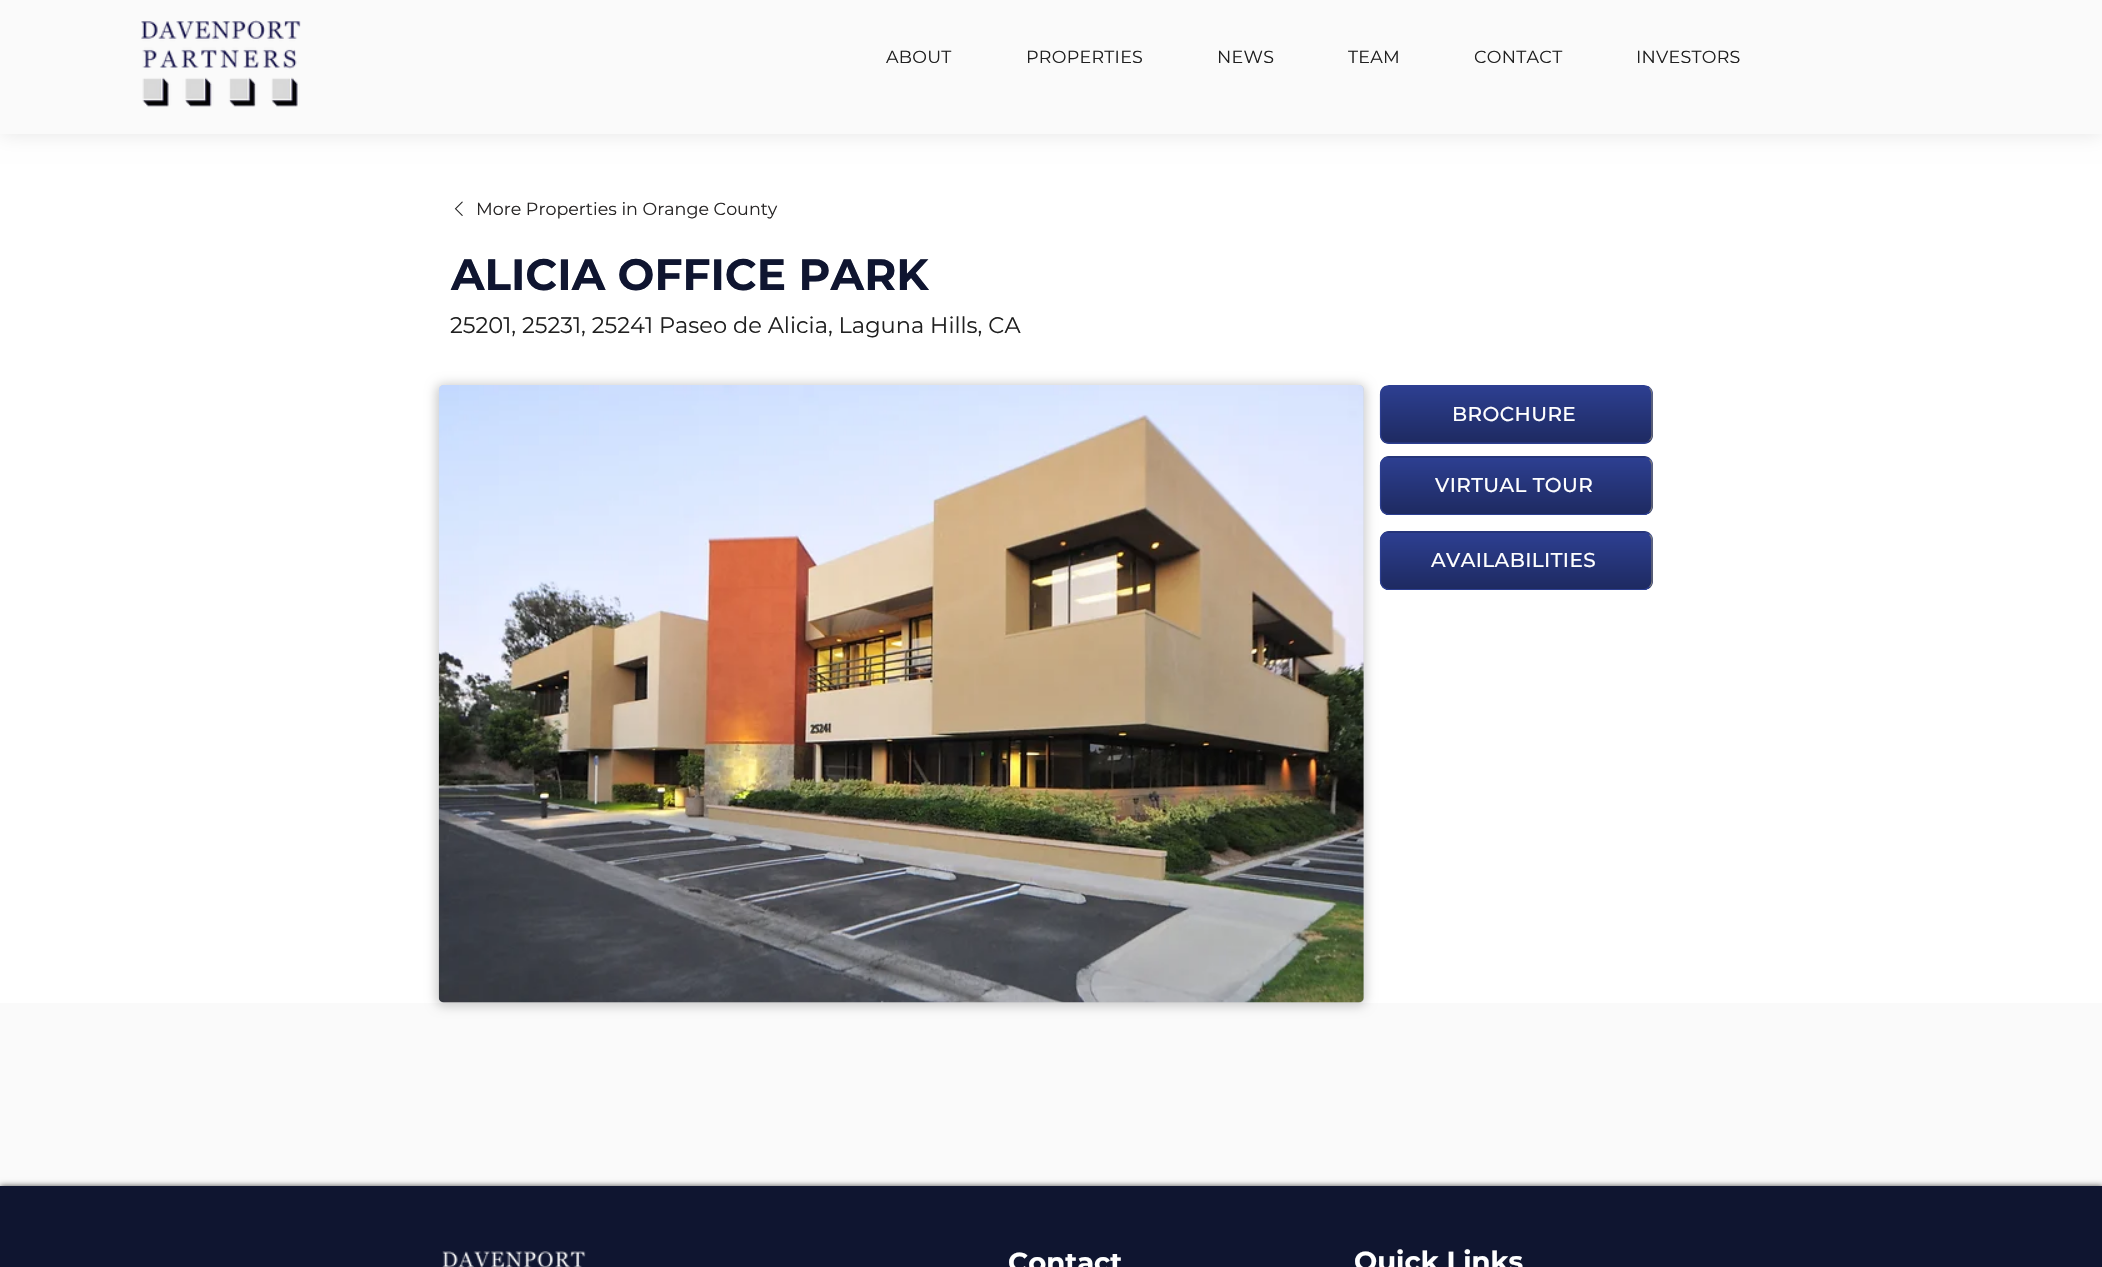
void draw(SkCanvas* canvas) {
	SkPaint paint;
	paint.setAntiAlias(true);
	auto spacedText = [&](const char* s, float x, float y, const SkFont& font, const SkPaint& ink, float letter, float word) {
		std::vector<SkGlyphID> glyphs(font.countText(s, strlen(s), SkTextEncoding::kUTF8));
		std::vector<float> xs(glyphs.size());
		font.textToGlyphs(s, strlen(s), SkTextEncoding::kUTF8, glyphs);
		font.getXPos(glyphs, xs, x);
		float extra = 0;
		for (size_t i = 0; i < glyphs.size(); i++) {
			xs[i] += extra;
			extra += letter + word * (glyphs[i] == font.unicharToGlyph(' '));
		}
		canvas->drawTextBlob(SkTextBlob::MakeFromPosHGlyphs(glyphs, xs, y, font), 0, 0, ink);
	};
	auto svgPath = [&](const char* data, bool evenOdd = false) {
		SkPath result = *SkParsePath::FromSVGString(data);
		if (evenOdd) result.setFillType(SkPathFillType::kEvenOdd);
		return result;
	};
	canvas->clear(0xfffafafa);
	paint.setColor(0xffffffff);
	canvas->drawRect(SkRect::MakeXYWH(0, 134, 2102, 869), paint);
	paint.setColor(0x1a000000);
	paint.setMaskFilter(SkMaskFilter::MakeBlur(kNormal_SkBlurStyle, 10));
	canvas->drawRect(SkRect::MakeXYWH(0, 0, 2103, 134), paint);
	paint.setMaskFilter(nullptr);
	paint.setColor(0xfffafafa);
	canvas->drawRect(SkRect::MakeXYWH(0, 0, 2102, 134), paint);
	canvas->drawImageRect(SkImages::DeferredFromEncodedData(SkData::MakeFromFileName("img1.png")), SkRect::MakeXYWH(141, 20, 160, 87), SkSamplingOptions());
	SkFont f1(fontMgr->matchFamilyStyle("Montserrat", SkFontStyle::Normal()), 17.5);
	f1.setSubpixel(true);
	paint.setColor(0xff202020);
	spacedText("ABOUT", 886, 63, f1, paint, 0.25, 0);
	spacedText("PROPERTIES", 1026, 63, f1, paint, 0.25, 0);
	spacedText("NEWS", 1217, 63, f1, paint, 0.25, 0);
	spacedText("TEAM", 1348, 63, f1, paint, 0.25, 0);
	spacedText("CONTACT", 1474, 63, f1, paint, 0.25, 0);
	spacedText("INVESTORS", 1636, 63, f1, paint, 0.25, 0);
	canvas->drawImageRect(SkImages::DeferredFromEncodedData(SkData::MakeFromFileName("img2.png")), SkRect::MakeXYWH(454, 201, 9, 15), SkSamplingOptions());
	paint.setColor(0xff282626);
	canvas->drawString("More Properties in Orange County", 476, 215, f1, paint);
	SkFont f2(fontMgr->matchFamilyStyle("Montserrat", SkFontStyle::Bold()), 43.75);
	f2.setSubpixel(true);
	paint.setColor(0xff0f1530);
	canvas->drawString("ALICIA OFFICE PARK", 451, 290, f2, paint);
	SkFont f3(fontMgr->matchFamilyStyle("Montserrat", SkFontStyle::Normal()), 22.5);
	f3.setSubpixel(true);
	paint.setColor(0xff202020);
	canvas->drawString("25201, 25231, 25241 Paseo de Alicia, Laguna Hills, CA", 450, 333, f3, paint);
	paint.setColor(0x33000000);
	paint.setMaskFilter(SkMaskFilter::MakeBlur(kNormal_SkBlurStyle, 5.5));
	canvas->drawRoundRect(SkRect::MakeXYWH(436, 384, 930, 622), 8, 8, paint);
	paint.setMaskFilter(nullptr);
	paint.setColor(0xffd2d2d2);
	canvas->drawRoundRect(SkRect::MakeXYWH(439, 385, 925, 618), 5, 5, paint);
	canvas->drawImageRect(SkImages::DeferredFromEncodedData(SkData::MakeFromFileName("img3.png")), SkRect::MakeXYWH(438, 385, 926, 618), SkSamplingOptions());
	canvas->save();
	canvas->clipPath(svgPath("M1389 385H1644C1649 385 1653 389 1653 394V435C1653 440 1649 444 1644 444H1389C1384 444 1380 440 1380 435V394C1380 389 1384 385 1389 385Z"), true);
	{
		const SkColor colors[] = {0xff2d3f91, 0xff1e2a61};
		const float stops[] = {0, 1};
		const SkPoint ends[] = {{1516, 386}, {1516, 443}};
		paint.setShader(SkGradientShader::MakeLinear(ends, colors, stops, 2, SkTileMode::kClamp));
		paint.setAlpha(255);
	}
	canvas->drawRect(SkRect::MakeXYWH(1380, 386, 273, 57), paint);
	{
		const SkColor colors[] = {0xff2d3f91, 0xff1e2a61};
		const float stops[] = {0, 1};
		const SkPoint ends[] = {{1516, 443}, {1516, 499}};
		paint.setShader(SkGradientShader::MakeLinear(ends, colors, stops, 2, SkTileMode::kClamp));
		paint.setAlpha(255);
	}
	canvas->drawRect(SkRect::MakeXYWH(1380, 443, 273, 1), paint);
	canvas->restore();
	paint.setStroke(true);
	paint.setStrokeWidth(1.2);
	paint.setShader(nullptr);
	paint.setColor(0xff797979);
	canvas->drawPath(svgPath("M1649.5 388C1651 389.5 1652 391.5 1652 394V435C1652 437 1651 439 1649.5 440.5"), paint);
	paint.setColor(0xff2d3f91);
	canvas->drawPath(svgPath("M1649.5 440.5C1648 442.5 1646 443 1644 443H1389C1386.5 443 1384.5 442.5 1383 440.5C1381.5 439 1380.5 437 1380.5 435V394C1380.5 391.5 1381.5 389.5 1383 388C1384.5 386.5 1386.5 385.5 1389 385.5H1644C1646 385.5 1648 386.5 1649.5 388"), paint);
	SkFont f4(fontMgr->matchFamilyStyle("Montserrat", SkFontStyle(500, SkFontStyle::kNormal_Width, SkFontStyle::kUpright_Slant)), 20);
	f4.setSubpixel(true);
	paint.setStroke(false);
	paint.setColor(0xffffffff);
	spacedText("BROCHURE", 1452, 421, f4, paint, 0.4, 0);
	canvas->save();
	canvas->clipPath(svgPath("M1389 456H1644C1649 456 1653 460 1653 465V506C1653 511 1649 515 1644 515H1389C1384 515 1380 511 1380 506V465C1380 460 1384 456 1389 456Z"), true);
	{
		const SkColor colors[] = {0xff2d3f91, 0xff1e2a61};
		const float stops[] = {0, 1};
		const SkPoint ends[] = {{1516, 401}, {1516, 458}};
		paint.setShader(SkGradientShader::MakeLinear(ends, colors, stops, 2, SkTileMode::kClamp));
		paint.setAlpha(255);
	}
	canvas->drawRect(SkRect::MakeXYWH(1380, 456, 273, 2), paint);
	{
		const SkColor colors[] = {0xff2d3f91, 0xff1e2a61};
		const float stops[] = {0, 1};
		const SkPoint ends[] = {{1516, 458}, {1516, 514}};
		paint.setShader(SkGradientShader::MakeLinear(ends, colors, stops, 2, SkTileMode::kClamp));
		paint.setAlpha(255);
	}
	canvas->drawRect(SkRect::MakeXYWH(1380, 458, 273, 56), paint);
	canvas->restore();
	paint.setStroke(true);
	paint.setShader(nullptr);
	paint.setColor(0xff797979);
	canvas->drawPath(svgPath("M1649.5 459.5C1651 461 1652 463 1652 465V506C1652 508.5 1651 510.5 1649.5 512"), paint);
	paint.setColor(0xff2d3f91);
	canvas->drawPath(svgPath("M1649.5 512C1648 513.5 1646 514.5 1644 514.5H1389C1386.5 514.5 1384.5 513.5 1383 512C1381.5 510.5 1380.5 508.5 1380.5 506V465C1380.5 463 1381.5 461 1383 459.5C1384.5 457.5 1386.5 457 1389 457H1644C1646 457 1648 457.5 1649.5 459.5"), paint);
	paint.setStroke(false);
	paint.setColor(0xffffffff);
	spacedText("VIRTUAL TOUR", 1435, 492, f4, paint, 0.4, 0);
	canvas->save();
	canvas->clipPath(svgPath("M1389 531H1644C1649 531 1653 535 1653 540V581C1653 586 1649 590 1644 590H1389C1384 590 1380 586 1380 581V540C1380 535 1384 531 1389 531Z"), true);
	{
		const SkColor colors[] = {0xff2d3f91, 0xff1e2a61};
		const float stops[] = {0, 1};
		const SkPoint ends[] = {{1516, 476}, {1516, 533}};
		paint.setShader(SkGradientShader::MakeLinear(ends, colors, stops, 2, SkTileMode::kClamp));
		paint.setAlpha(255);
	}
	canvas->drawRect(SkRect::MakeXYWH(1380, 531, 273, 2), paint);
	{
		const SkColor colors[] = {0xff2d3f91, 0xff1e2a61};
		const float stops[] = {0, 1};
		const SkPoint ends[] = {{1516, 533}, {1516, 589}};
		paint.setShader(SkGradientShader::MakeLinear(ends, colors, stops, 2, SkTileMode::kClamp));
		paint.setAlpha(255);
	}
	canvas->drawRect(SkRect::MakeXYWH(1380, 533, 273, 56), paint);
	canvas->restore();
	paint.setStroke(true);
	paint.setShader(nullptr);
	paint.setColor(0xff797979);
	canvas->drawPath(svgPath("M1649.5 534.5C1651 536 1652 538 1652 540V581C1652 583.5 1651 585.5 1649.5 587"), paint);
	paint.setColor(0xff2d3f91);
	canvas->drawPath(svgPath("M1649.5 587C1648 588.5 1646 589.5 1644 589.5H1389C1386.5 589.5 1384.5 588.5 1383 587C1381.5 585.5 1380.5 583.5 1380.5 581V540C1380.5 538 1381.5 536 1383 534.5C1384.5 532.5 1386.5 532 1389 532H1644C1646 532 1648 532.5 1649.5 534.5"), paint);
	paint.setStroke(false);
	paint.setColor(0xffffffff);
	spacedText("AVAILABILITIES", 1431, 567, f4, paint, 0.4, 0);
	paint.setColor(0xb3000000);
	paint.setMaskFilter(SkMaskFilter::MakeBlur(kNormal_SkBlurStyle, 3));
	canvas->drawRect(SkRect::MakeXYWH(0, 1186, 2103, 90), paint);
	paint.setMaskFilter(nullptr);
	paint.setColor(0xff0f1530);
	canvas->drawRect(SkRect::MakeXYWH(0, 1186, 2102, 81), paint);
	canvas->drawImageRect(SkImages::DeferredFromEncodedData(SkData::MakeFromFileName("img4.png")), SkRect::MakeXYWH(442, 1251, 144, 16), SkSamplingOptions());
	SkFont f5(fontMgr->matchFamilyStyle("Montserrat", SkFontStyle::Bold()), 27.5);
	f5.setSubpixel(true);
	paint.setColor(0xffffffff);
	canvas->drawString("Contact", 1008, 1272, f5, paint);
	canvas->drawString("Quick Links", 1354, 1271, f5, paint);
}
